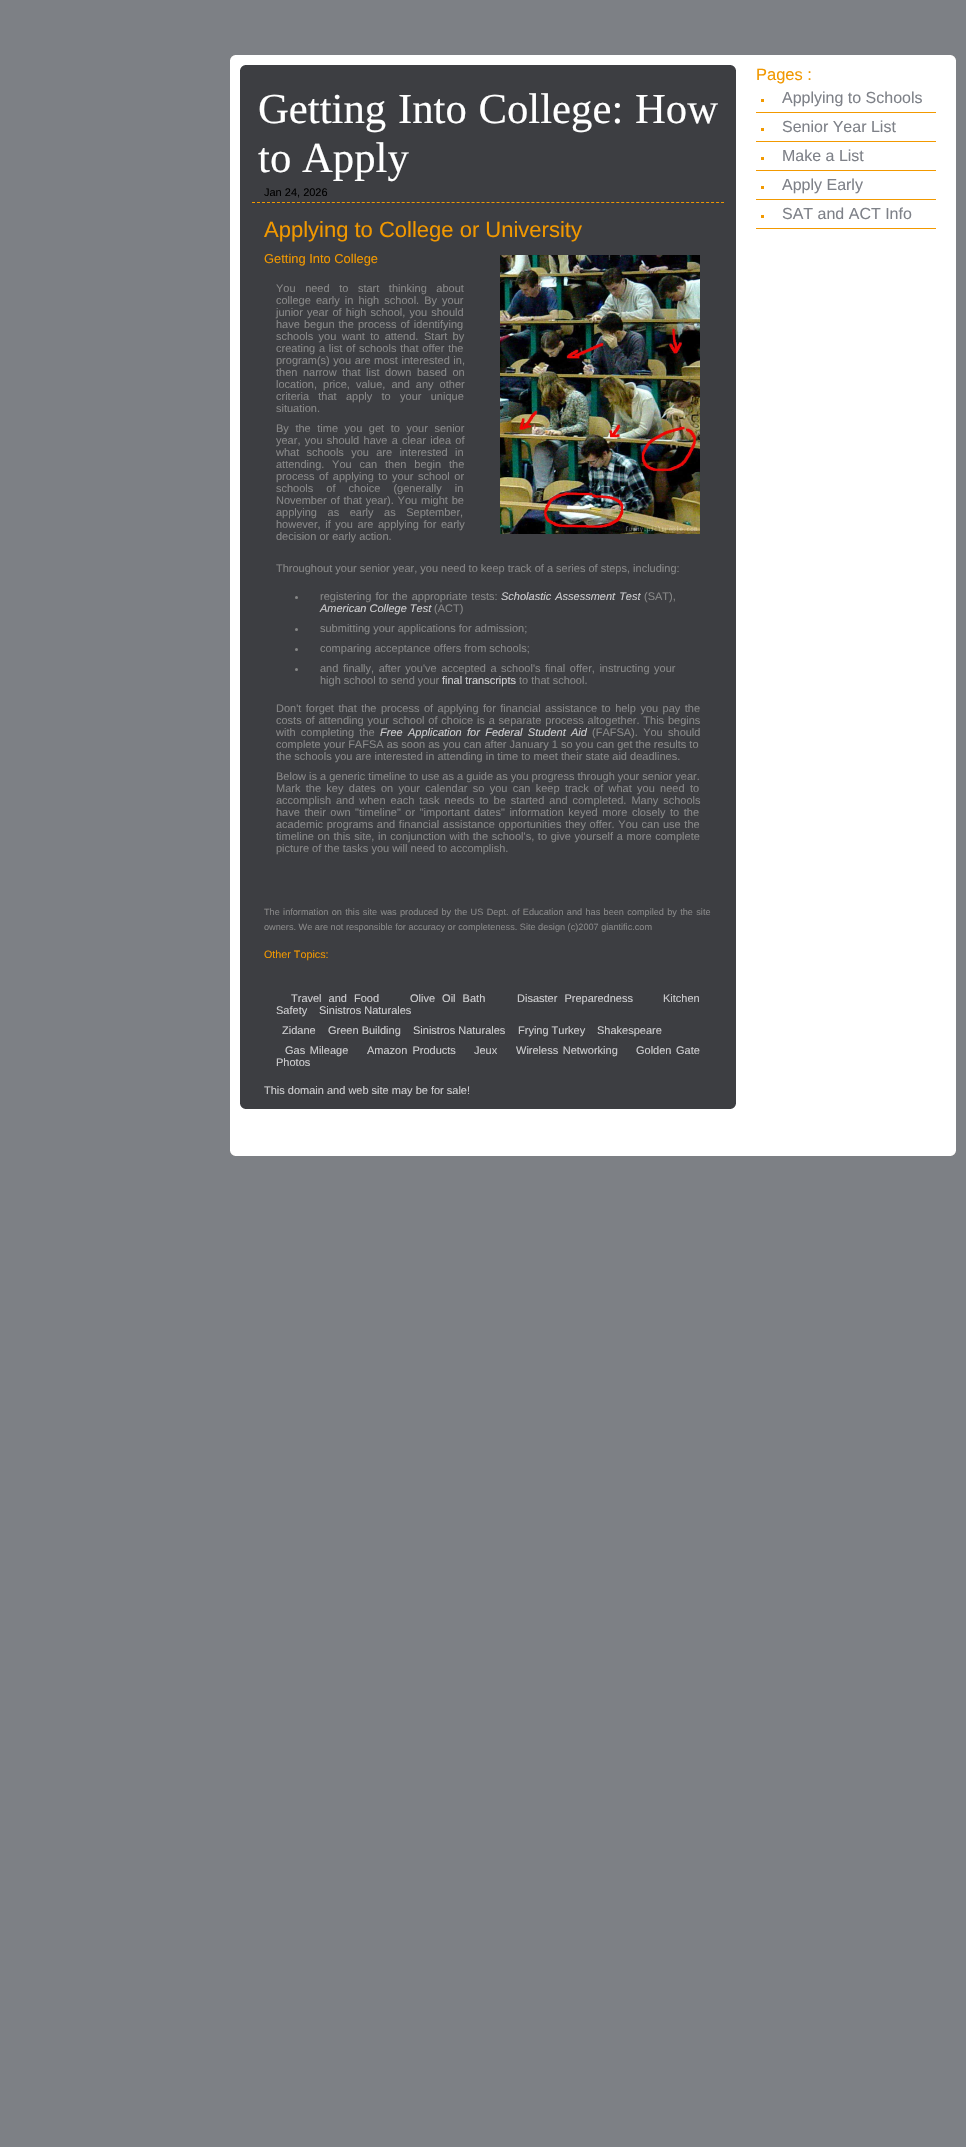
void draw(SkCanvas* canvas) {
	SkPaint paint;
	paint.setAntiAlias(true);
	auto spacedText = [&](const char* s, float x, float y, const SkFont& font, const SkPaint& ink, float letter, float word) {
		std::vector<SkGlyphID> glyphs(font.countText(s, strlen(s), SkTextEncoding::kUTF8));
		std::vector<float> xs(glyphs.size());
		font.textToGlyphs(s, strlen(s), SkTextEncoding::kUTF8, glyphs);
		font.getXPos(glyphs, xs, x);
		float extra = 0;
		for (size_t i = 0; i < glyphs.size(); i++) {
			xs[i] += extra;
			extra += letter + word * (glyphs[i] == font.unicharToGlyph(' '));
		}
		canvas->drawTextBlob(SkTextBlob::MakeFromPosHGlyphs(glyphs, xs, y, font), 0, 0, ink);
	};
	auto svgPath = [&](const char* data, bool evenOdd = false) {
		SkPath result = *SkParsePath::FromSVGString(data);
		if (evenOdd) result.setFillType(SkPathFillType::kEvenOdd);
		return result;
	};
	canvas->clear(0xff7d8085);
	paint.setColor(0xffe1e1e1);
	canvas->drawRect(SkRect::MakeXYWH(233, 55, 720, 1), paint);
	paint.setColor(0xffbababa);
	canvas->drawRect(SkRect::MakeXYWH(952, 55, 1, 1), paint);
	canvas->drawRect(SkRect::MakeXYWH(233, 55, 1, 1), paint);
	paint.setColor(0xffffffff);
	canvas->drawRect(SkRect::MakeXYWH(235, 55, 716, 1), paint);
	paint.setColor(0xffe8e8e8);
	canvas->drawRect(SkRect::MakeXYWH(231, 56, 724, 1), paint);
	paint.setColor(0xff939393);
	canvas->drawRect(SkRect::MakeXYWH(954, 56, 1, 1), paint);
	canvas->drawRect(SkRect::MakeXYWH(231, 56, 1, 1), paint);
	paint.setColor(0xffffffff);
	canvas->drawRect(SkRect::MakeXYWH(233, 56, 720, 1), paint);
	canvas->drawRect(SkRect::MakeXYWH(231, 57, 724, 1), paint);
	paint.setColor(0xffe8e8e8);
	canvas->drawRect(SkRect::MakeXYWH(954, 57, 1, 1), paint);
	canvas->drawRect(SkRect::MakeXYWH(231, 57, 1, 1), paint);
	paint.setColor(0xffffffff);
	canvas->drawRect(SkRect::MakeXYWH(230, 58, 726, 2), paint);
	paint.setColor(0xffbababa);
	canvas->drawRect(SkRect::MakeXYWH(955, 58, 1, 1), paint);
	canvas->drawRect(SkRect::MakeXYWH(230, 58, 1, 1), paint);
	paint.setColor(0xffe1e1e1);
	canvas->drawRect(SkRect::MakeXYWH(955, 59, 1, 1), paint);
	canvas->drawRect(SkRect::MakeXYWH(230, 59, 1, 1), paint);
	paint.setColor(0xffffffff);
	canvas->drawRect(SkRect::MakeXYWH(230, 60, 726, 1093), paint);
	paint.setColor(0xff6d6e71);
	canvas->drawRect(SkRect::MakeXYWH(243, 65, 490, 1), paint);
	paint.setColor(0xffabacad);
	canvas->drawRect(SkRect::MakeXYWH(732, 65, 1, 1), paint);
	canvas->drawRect(SkRect::MakeXYWH(243, 65, 1, 1), paint);
	paint.setColor(0xff3d3e42);
	canvas->drawRect(SkRect::MakeXYWH(245, 65, 486, 1), paint);
	paint.setColor(0xff616265);
	canvas->drawRect(SkRect::MakeXYWH(241, 66, 494, 1), paint);
	paint.setColor(0xffebebec);
	canvas->drawRect(SkRect::MakeXYWH(734, 66, 1, 1), paint);
	canvas->drawRect(SkRect::MakeXYWH(241, 66, 1, 1), paint);
	paint.setColor(0xff3d3e42);
	canvas->drawRect(SkRect::MakeXYWH(243, 66, 490, 1), paint);
	canvas->drawRect(SkRect::MakeXYWH(241, 67, 494, 1), paint);
	paint.setColor(0xff616265);
	canvas->drawRect(SkRect::MakeXYWH(734, 67, 1, 1), paint);
	canvas->drawRect(SkRect::MakeXYWH(241, 67, 1, 1), paint);
	paint.setColor(0xff3d3e42);
	canvas->drawRect(SkRect::MakeXYWH(240, 68, 496, 2), paint);
	paint.setColor(0xffabacad);
	canvas->drawRect(SkRect::MakeXYWH(735, 68, 1, 1), paint);
	canvas->drawRect(SkRect::MakeXYWH(240, 68, 1, 1), paint);
	paint.setColor(0xff6d6e71);
	canvas->drawRect(SkRect::MakeXYWH(735, 69, 1, 1), paint);
	canvas->drawRect(SkRect::MakeXYWH(240, 69, 1, 1), paint);
	paint.setColor(0xff3d3e42);
	canvas->drawRect(SkRect::MakeXYWH(240, 70, 496, 1036), paint);
	paint.setStroke(true);
	paint.setStrokeWidth(1);
	paint.setColor(0xfff19800);
	paint.setPathEffect(SkDashPathEffect::Make({{3, 1.99f}}, 0));
	canvas->drawPath(svgPath("M252 202.5H724"), paint);
	paint.setPathEffect(nullptr);
	SkFont f1(fontMgr->matchFamilyStyle("Liberation Serif", SkFontStyle::Normal()), 42.75);
	f1.setSubpixel(true);
	paint.setStroke(false);
	paint.setColor(0xffffffff);
	spacedText("Getting Into College: How", 258, 123, f1, paint, 0, 1);
	canvas->drawString("to Apply", 258, 172, f1, paint);
	SkFont f2(fontMgr->matchFamilyStyle("Liberation Sans", SkFontStyle::Normal()), 11);
	f2.setSubpixel(true);
	paint.setColor(0xff000000);
	canvas->drawString("Jan 24, 2026", 264, 196, f2, paint);
	SkFont f3(fontMgr->matchFamilyStyle("Liberation Sans", SkFontStyle::Normal()), 22);
	f3.setSubpixel(true);
	paint.setColor(0xfff19800);
	canvas->drawString("Applying to College or University", 264, 237, f3, paint);
	SkFont f4(fontMgr->matchFamilyStyle("Liberation Sans", SkFontStyle::Normal()), 12.9);
	f4.setSubpixel(true);
	canvas->drawString("Getting Into College", 264, 263, f4, paint);
	paint.setColor(0xff878787);
	spacedText("You need to start thinking about", 276, 292, f2, paint, 0, 6.5);
	spacedText("college early in high school. By your", 276, 304, f2, paint, 0, 2);
	spacedText("junior year of high school, you should", 276, 316, f2, paint, 0, 1);
	spacedText("have begun the process of identifying", 276, 328, f2, paint, 0, 1);
	spacedText("schools you want to attend.", 276, 340, f2, paint, 0, 2.25);
	spacedText("Start by", 424, 340, f2, paint, 0, 2.25);
	spacedText("creating a list of schools that offer the", 276, 352, f2, paint, 0, 0.75);
	spacedText("program(s) you are most interested in,", 276, 364, f2, paint, 0, 0.5);
	spacedText("then narrow that list down based on", 276, 376, f2, paint, 0, 2.5);
	spacedText("location, price, value, and any other", 276, 388, f2, paint, 0, 3);
	spacedText("criteria that apply to your unique", 276, 400, f2, paint, 0, 6.25);
	canvas->drawString("situation.", 276, 412, f2, paint);
	spacedText("By the time you get to your senior", 276, 432, f2, paint, 0, 3.5);
	spacedText("year, you should have a clear idea of", 276, 444, f2, paint, 0, 1.25);
	spacedText("what schools you are interested in", 276, 456, f2, paint, 0, 4.25);
	spacedText("attending. You can then begin the", 276, 468, f2, paint, 0, 4.75);
	spacedText("process of applying to your school or", 276, 480, f2, paint, 0, 1.5);
	spacedText("schools of choice (generally in", 276, 492, f2, paint, 0, 10);
	spacedText("November of that year). You might be", 276, 504, f2, paint, 0, 0.75);
	spacedText("applying as early as September,", 276, 516, f2, paint, 0, 7.5);
	spacedText("however, if you are applying for early", 276, 528, f2, paint, 0, 1.5);
	canvas->drawString("decision or early action.", 276, 540, f2, paint);
	canvas->drawString("Throughout your senior year, you need to keep track of a series of steps, including:", 276, 572, f2, paint);
	canvas->drawCircle(296.5, 597.5, 1.5, paint);
	spacedText("registering for the appropriate tests:", 320, 600, f2, paint, 0, 1);
	SkFont f5(fontMgr->matchFamilyStyle("Liberation Sans", SkFontStyle::Italic()), 11);
	f5.setSubpixel(true);
	paint.setColor(0xffcdcdcf);
	spacedText("Scholastic Assessment Test", 501, 600, f5, paint, 0, 1);
	paint.setColor(0xff878787);
	canvas->drawString("(SAT),", 644, 600, f2, paint);
	paint.setColor(0xffcdcdcf);
	canvas->drawString("American College Test", 320, 612, f5, paint);
	paint.setColor(0xff878787);
	canvas->drawString("(ACT)", 434, 612, f2, paint);
	canvas->drawCircle(296.5, 629.5, 1.5, paint);
	canvas->drawString("submitting your applications for admission;", 320, 632, f2, paint);
	canvas->drawCircle(296.5, 649.5, 1.5, paint);
	canvas->drawString("comparing acceptance offers from schools;", 320, 652, f2, paint);
	canvas->drawCircle(296.5, 669.5, 1.5, paint);
	spacedText("and finally, after you've accepted a school's final offer, instructing your", 320, 672, f2, paint, 0, 1.5);
	canvas->drawString("high school to send your", 320, 684, f2, paint);
	paint.setColor(0xffcdcdcf);
	canvas->drawString("final transcripts", 442, 684, f2, paint);
	paint.setColor(0xff878787);
	canvas->drawString("to that school.", 519, 684, f2, paint);
	spacedText("Don't forget that the process of applying for financial assistance to help you pay the", 276, 712, f2, paint, 0, 1.4);
	spacedText("costs of attending your school of choice is a separate process altogether. This begins", 276, 724, f2, paint, 0, 0.75);
	spacedText("with completing the", 276, 736, f2, paint, 0, 2.25);
	paint.setColor(0xffcdcdcf);
	spacedText("Free Application for Federal Student Aid", 380, 736, f5, paint, 0, 2.25);
	paint.setColor(0xff878787);
	spacedText("(FAFSA). You should", 592, 736, f2, paint, 0, 2.25);
	canvas->drawString("complete your FAFSA as soon as you can after January 1 so you can get the results to", 276, 748, f2, paint);
	canvas->drawString("the schools you are interested in attending in time to meet their state aid deadlines.", 276, 760, f2, paint);
	canvas->drawString("Below is a generic timeline to use as a guide as you progress through your senior year.", 276, 780, f2, paint);
	spacedText("Mark the key dates on your calendar so you can keep track of what you need to", 276, 792, f2, paint, 0, 2.25);
	spacedText("accomplish and when each task needs to be started and completed. Many schools", 276, 804, f2, paint, 0, 1.9);
	spacedText("have their own \"timeline\" or \"important dates\" information keyed more closely to the", 276, 816, f2, paint, 0, 1.5);
	spacedText("academic programs and financial assistance opportunities they offer. You can use the", 276, 828, f2, paint, 0, 0.6);
	spacedText("timeline on this site, in conjunction with the school's, to give yourself a more complete", 276, 840, f2, paint, 0, 0.6);
	canvas->drawString("picture of the tasks you will need to accomplish.", 276, 852, f2, paint);
	canvas->drawImageRect(SkImages::DeferredFromEncodedData(SkData::MakeFromFileName("img1.png")), SkRect::MakeXYWH(500, 255, 200, 279), SkSamplingOptions());
	SkFont f6(fontMgr->matchFamilyStyle("Liberation Sans", SkFontStyle::Normal()), 9.15);
	f6.setSubpixel(true);
	spacedText("The information on this site was produced by the US Dept. of Education and has been compiled by the site", 264, 915, f6, paint, 0, 0.8);
	canvas->drawString("owners. We are not responsible for accuracy or completeness. Site design (c)2007 giantific.com", 264, 930, f6, paint);
	SkFont f7(fontMgr->matchFamilyStyle("Liberation Sans", SkFontStyle::Normal()), 10.75);
	f7.setSubpixel(true);
	paint.setColor(0xfff19800);
	canvas->drawString("Other Topics:", 264, 958, f7, paint);
	paint.setColor(0xffcdcdcf);
	spacedText("Travel and Food", 291, 1002, f2, paint, 0, 4);
	spacedText("Olive Oil Bath", 410, 1002, f2, paint, 0, 4);
	spacedText("Disaster Preparedness", 517, 1002, f2, paint, 0, 4);
	canvas->drawString("Kitchen", 663, 1002, f2, paint);
	canvas->drawString("Safety", 276, 1014, f2, paint);
	canvas->drawString("Sinistros Naturales", 319, 1014, f2, paint);
	canvas->drawString("Zidane", 282, 1034, f2, paint);
	canvas->drawString("Green Building", 328, 1034, f2, paint);
	canvas->drawString("Sinistros Naturales", 413, 1034, f2, paint);
	canvas->drawString("Frying Turkey", 518, 1034, f2, paint);
	canvas->drawString("Shakespeare", 597, 1034, f2, paint);
	spacedText("Gas Mileage", 285, 1054, f2, paint, 0, 1.5);
	spacedText("Amazon Products", 367, 1054, f2, paint, 0, 2);
	canvas->drawString("Jeux", 474, 1054, f2, paint);
	spacedText("Wireless Networking", 516, 1054, f2, paint, 0, 1.5);
	spacedText("Golden Gate", 636, 1054, f2, paint, 0, 1.5);
	canvas->drawString("Photos", 276, 1066, f2, paint);
	canvas->drawString("This domain and web site may be for sale!", 264, 1094, f2, paint);
	paint.setColor(0xff6d6e71);
	canvas->drawRect(SkRect::MakeXYWH(735, 1104, 1, 1), paint);
	canvas->drawRect(SkRect::MakeXYWH(240, 1104, 1, 1), paint);
	paint.setColor(0xffabacad);
	canvas->drawRect(SkRect::MakeXYWH(735, 1105, 1, 1), paint);
	canvas->drawRect(SkRect::MakeXYWH(240, 1105, 1, 1), paint);
	paint.setColor(0xff3d3e42);
	canvas->drawRect(SkRect::MakeXYWH(241, 1106, 494, 1), paint);
	paint.setColor(0xff616265);
	canvas->drawRect(SkRect::MakeXYWH(734, 1106, 1, 1), paint);
	canvas->drawRect(SkRect::MakeXYWH(241, 1106, 1, 1), paint);
	canvas->drawRect(SkRect::MakeXYWH(241, 1107, 494, 1), paint);
	paint.setColor(0xffebebec);
	canvas->drawRect(SkRect::MakeXYWH(734, 1107, 1, 1), paint);
	canvas->drawRect(SkRect::MakeXYWH(241, 1107, 1, 1), paint);
	paint.setColor(0xff3d3e42);
	canvas->drawRect(SkRect::MakeXYWH(243, 1107, 490, 1), paint);
	paint.setColor(0xff6d6e71);
	canvas->drawRect(SkRect::MakeXYWH(243, 1108, 490, 1), paint);
	paint.setColor(0xffabacad);
	canvas->drawRect(SkRect::MakeXYWH(732, 1108, 1, 1), paint);
	canvas->drawRect(SkRect::MakeXYWH(243, 1108, 1, 1), paint);
	paint.setColor(0xff3d3e42);
	canvas->drawRect(SkRect::MakeXYWH(245, 1108, 486, 1), paint);
	paint.setColor(0xffe1e1e1);
	canvas->drawRect(SkRect::MakeXYWH(955, 1151, 1, 1), paint);
	canvas->drawRect(SkRect::MakeXYWH(230, 1151, 1, 1), paint);
	paint.setColor(0xffbababa);
	canvas->drawRect(SkRect::MakeXYWH(955, 1152, 1, 1), paint);
	canvas->drawRect(SkRect::MakeXYWH(230, 1152, 1, 1), paint);
	paint.setColor(0xffffffff);
	canvas->drawRect(SkRect::MakeXYWH(231, 1153, 724, 1), paint);
	paint.setColor(0xffe8e8e8);
	canvas->drawRect(SkRect::MakeXYWH(954, 1153, 1, 1), paint);
	canvas->drawRect(SkRect::MakeXYWH(231, 1153, 1, 1), paint);
	canvas->drawRect(SkRect::MakeXYWH(231, 1154, 724, 1), paint);
	paint.setColor(0xff939393);
	canvas->drawRect(SkRect::MakeXYWH(954, 1154, 1, 1), paint);
	canvas->drawRect(SkRect::MakeXYWH(231, 1154, 1, 1), paint);
	paint.setColor(0xffffffff);
	canvas->drawRect(SkRect::MakeXYWH(233, 1154, 720, 1), paint);
	paint.setColor(0xffe1e1e1);
	canvas->drawRect(SkRect::MakeXYWH(233, 1155, 720, 1), paint);
	paint.setColor(0xffbababa);
	canvas->drawRect(SkRect::MakeXYWH(952, 1155, 1, 1), paint);
	canvas->drawRect(SkRect::MakeXYWH(233, 1155, 1, 1), paint);
	paint.setColor(0xffffffff);
	canvas->drawRect(SkRect::MakeXYWH(235, 1155, 716, 1), paint);
	SkFont f8(fontMgr->matchFamilyStyle("Liberation Sans", SkFontStyle::Normal()), 16.5);
	f8.setSubpixel(true);
	paint.setColor(0xfff19800);
	canvas->drawString("Pages :", 756, 80, f8, paint);
	paint.setColor(0xfff29900);
	canvas->drawRect(SkRect::MakeXYWH(756, 112, 180, 1), paint);
	canvas->drawRect(SkRect::MakeXYWH(761, 99, 3, 3), paint);
	SkFont f9(fontMgr->matchFamilyStyle("Liberation Sans", SkFontStyle::Normal()), 16);
	f9.setSubpixel(true);
	paint.setColor(0xff7e8188);
	canvas->drawString("Applying to Schools", 782, 103, f9, paint);
	paint.setColor(0xfff29900);
	canvas->drawRect(SkRect::MakeXYWH(756, 141, 180, 1), paint);
	canvas->drawRect(SkRect::MakeXYWH(761, 128, 3, 3), paint);
	paint.setColor(0xff7e8188);
	canvas->drawString("Senior Year List", 782, 132, f9, paint);
	paint.setColor(0xfff29900);
	canvas->drawRect(SkRect::MakeXYWH(756, 170, 180, 1), paint);
	canvas->drawRect(SkRect::MakeXYWH(761, 157, 3, 3), paint);
	paint.setColor(0xff7e8188);
	canvas->drawString("Make a List", 782, 161, f9, paint);
	paint.setColor(0xfff29900);
	canvas->drawRect(SkRect::MakeXYWH(756, 199, 180, 1), paint);
	canvas->drawRect(SkRect::MakeXYWH(761, 186, 3, 3), paint);
	paint.setColor(0xff7e8188);
	canvas->drawString("Apply Early", 782, 190, f9, paint);
	paint.setColor(0xfff29900);
	canvas->drawRect(SkRect::MakeXYWH(756, 228, 180, 1), paint);
	canvas->drawRect(SkRect::MakeXYWH(761, 215, 3, 3), paint);
	paint.setColor(0xff7e8188);
	canvas->drawString("SAT and ACT Info", 782, 219, f9, paint);
}
